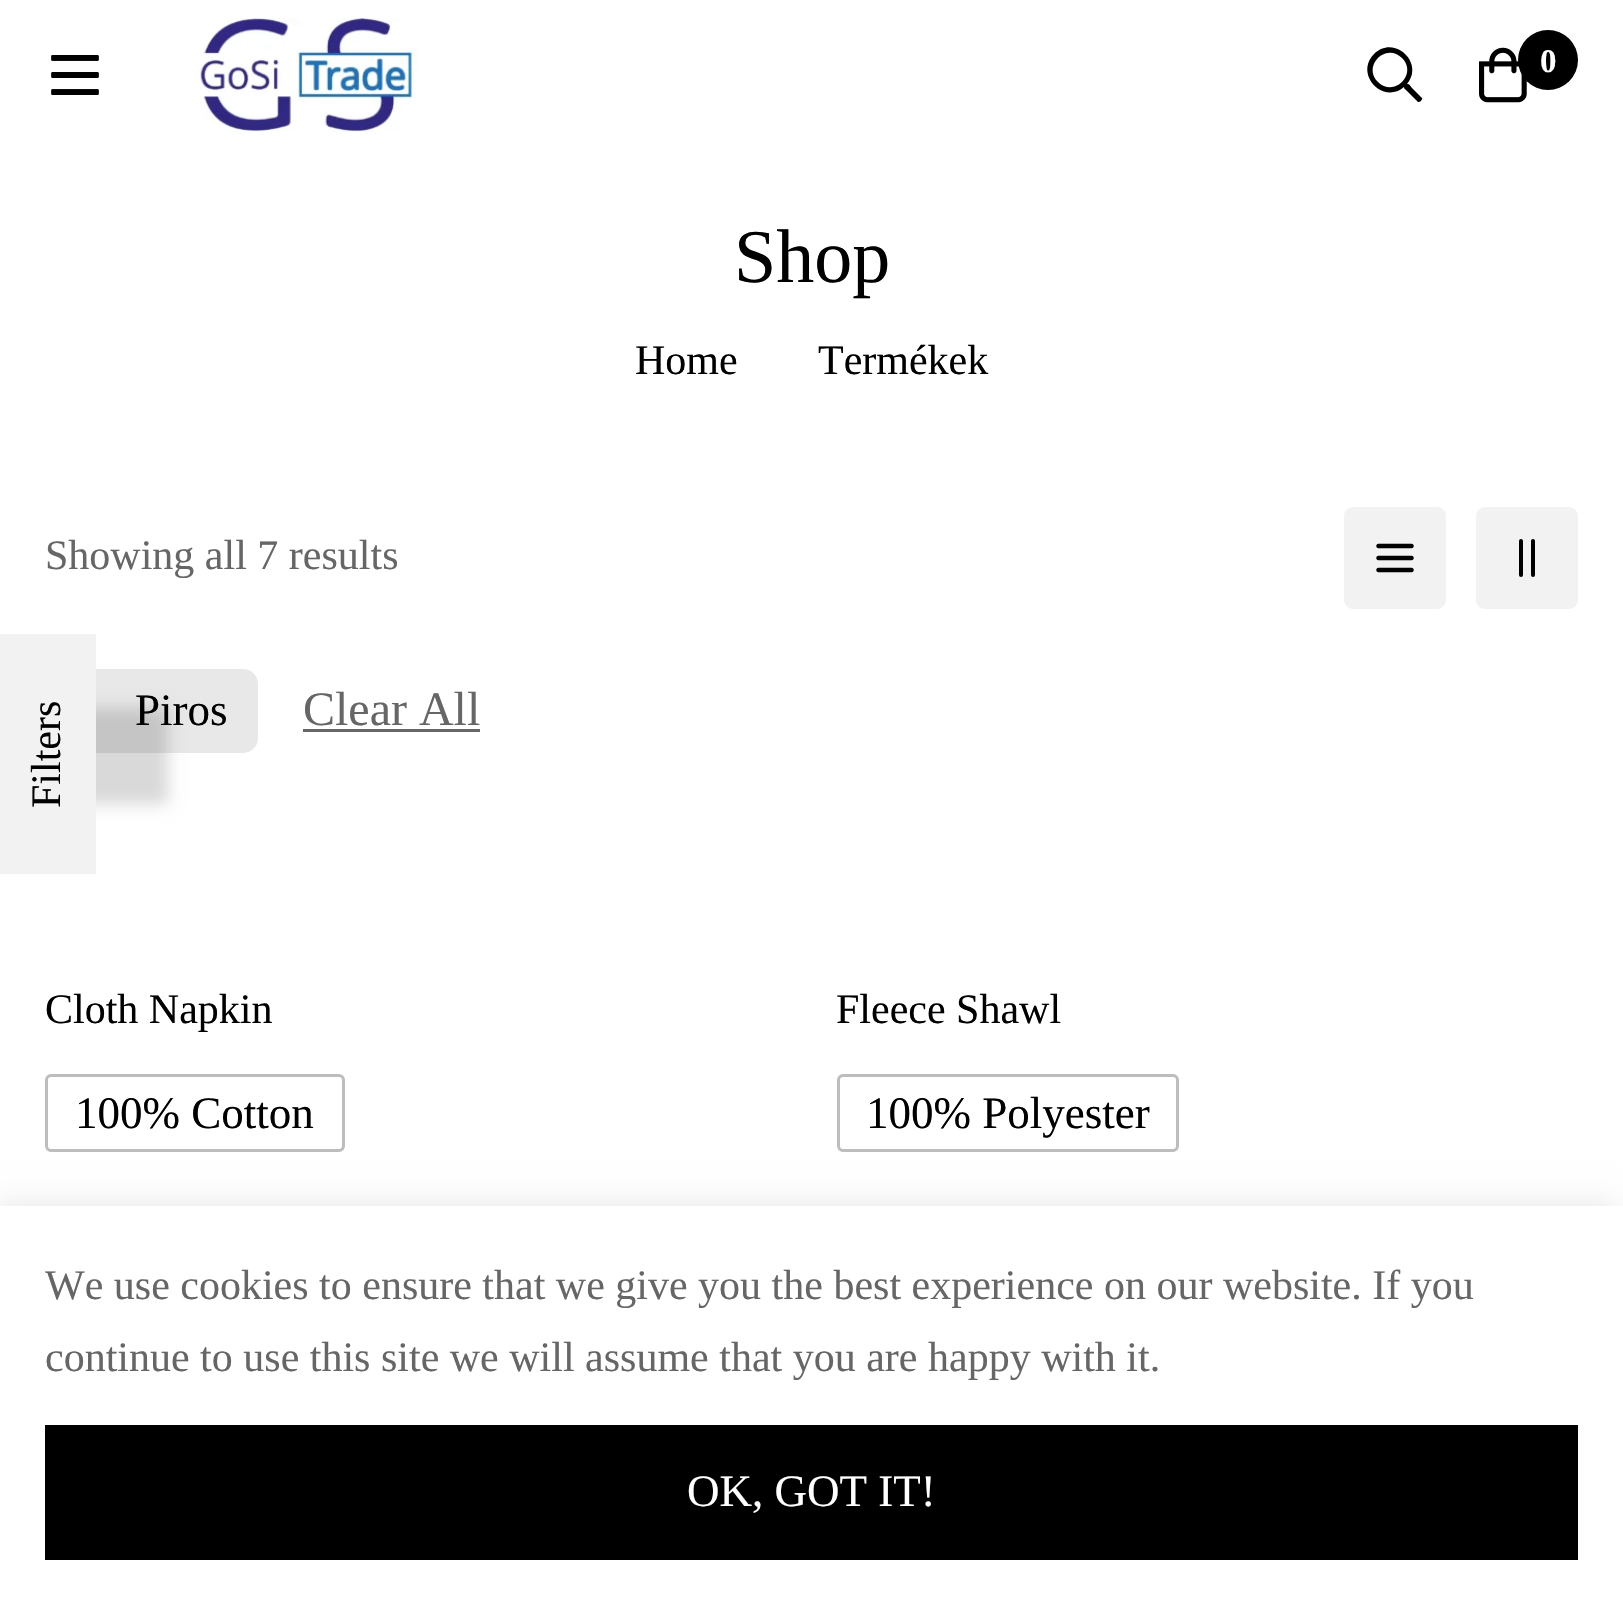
void draw(SkCanvas* canvas) {
	SkPaint paint;
	paint.setAntiAlias(true);
	auto svgPath = [&](const char* data, bool evenOdd = false) {
		SkPath result = *SkParsePath::FromSVGString(data);
		if (evenOdd) result.setFillType(SkPathFillType::kEvenOdd);
		return result;
	};
	canvas->clear(0xffffffff);
	canvas->drawImageRect(SkImages::DeferredFromEncodedData(SkData::MakeFromFileName("img1.png")), SkRect::MakeXYWH(51, 55, 48, 40), SkSamplingOptions());
	canvas->drawImageRect(SkImages::DeferredFromEncodedData(SkData::MakeFromFileName("img2.png")), SkRect::MakeXYWH(194, 18, 224, 114), SkSamplingOptions());
	paint.setColor(0xff000000);
	canvas->drawPath(svgPath("M1422 98C1423 99 1421 100 1421 101C1418 103 1418 102 1416 100L1407 91C1405 89 1404 89 1404 87C1383 105 1354 74 1374 54C1394 34 1425 63 1407 84C1410 84 1410 86 1413 89ZM1378 82C1394 98 1418 74 1402 58C1386 42 1362 66 1378 82Z"), paint);
	canvas->drawImageRect(SkImages::DeferredFromEncodedData(SkData::MakeFromFileName("img3.png")), SkRect::MakeXYWH(1479, 47, 48, 56), SkSamplingOptions());
	canvas->drawCircle(1548, 60, 30, paint);
	SkFont f1(fontMgr->matchFamilyStyle("Liberation Serif", SkFontStyle::Bold()), 33);
	f1.setSubpixel(true);
	paint.setColor(0xffffffff);
	canvas->drawString("0", 1540, 72, f1, paint);
	SkFont f2(fontMgr->matchFamilyStyle("Liberation Serif", SkFontStyle::Normal()), 76);
	f2.setSubpixel(true);
	paint.setColor(0xff000000);
	canvas->drawString("Shop", 734, 282, f2, paint);
	SkFont f3(fontMgr->matchFamilyStyle("Liberation Serif", SkFontStyle::Normal()), 42);
	f3.setSubpixel(true);
	canvas->drawString("Home", 635, 374, f3, paint);
	canvas->drawString("Termékek", 818, 374, f3, paint);
	paint.setColor(0xffe8e8e8);
	canvas->drawRoundRect(SkRect::MakeXYWH(45, 669, 213, 84), 15, 15, paint);
	paint.setColor(0x26000000);
	paint.setMaskFilter(SkMaskFilter::MakeBlur(kNormal_SkBlurStyle, 7.5));
	canvas->drawRect(SkRect::MakeXYWH(-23, 708, 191, 96), paint);
	paint.setMaskFilter(nullptr);
	paint.setColor(0xfff2f2f2);
	canvas->drawRect(SkRect::MakeXYWH(0, 634, 96, 240), paint);
	paint.setColor(0xff000000);
	canvas->save();
	canvas->rotate(-90, 60, 808);
	canvas->drawString("Filters", 60, 808, f3, paint);
	canvas->restore();
	paint.setColor(0xff666666);
	canvas->drawString("Showing all 7 results", 45, 569, f3, paint);
	paint.setColor(0xfff2f2f2);
	canvas->drawRoundRect(SkRect::MakeXYWH(1344, 507, 102, 102), 9, 9, paint);
	canvas->drawImageRect(SkImages::DeferredFromEncodedData(SkData::MakeFromFileName("img4.png")), SkRect::MakeXYWH(1376, 543, 38, 30), SkSamplingOptions());
	canvas->drawRoundRect(SkRect::MakeXYWH(1476, 507, 102, 102), 9, 9, paint);
	paint.setColor(0xff000000);
	canvas->drawRoundRect(SkRect::MakeXYWH(1519, 539, 4, 38), 2, 2, paint);
	canvas->drawRoundRect(SkRect::MakeXYWH(1531, 539, 4, 38), 2, 2, paint);
	SkFont f4(fontMgr->matchFamilyStyle("Liberation Serif", SkFontStyle::Normal()), 45);
	f4.setSubpixel(true);
	canvas->drawString("Piros", 135, 725, f4, paint);
	SkFont f5(fontMgr->matchFamilyStyle("Liberation Serif", SkFontStyle::Normal()), 48);
	f5.setSubpixel(true);
	paint.setColor(0xff666666);
	canvas->drawString("Clear All", 303, 725, f5, paint);
	canvas->drawRect(SkRect::MakeXYWH(303, 729, 177, 3), paint);
	paint.setColor(0xff000000);
	canvas->drawString("Cloth Napkin", 45, 1023, f3, paint);
	paint.setStroke(true);
	paint.setStrokeWidth(3);
	paint.setColor(0xffbdbdbd);
	canvas->drawRoundRect(SkRect::MakeXYWH(46.5, 1075.5, 297, 75), 4.5, 4.5, paint);
	paint.setStroke(false);
	paint.setColor(0xff000000);
	canvas->drawString("100% Cotton", 75, 1128, f4, paint);
	canvas->drawString("Fleece Shawl", 836, 1023, f3, paint);
	paint.setStroke(true);
	paint.setColor(0xffbdbdbd);
	canvas->drawRoundRect(SkRect::MakeXYWH(838.5, 1075.5, 339, 75), 4.5, 4.5, paint);
	paint.setStroke(false);
	paint.setColor(0xff000000);
	canvas->drawString("100% Polyester", 866, 1128, f4, paint);
	paint.setColor(0x1a000000);
	paint.setMaskFilter(SkMaskFilter::MakeBlur(kNormal_SkBlurStyle, 15));
	canvas->drawRect(SkRect::MakeXYWH(-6, 1206, 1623, 399), paint);
	paint.setMaskFilter(nullptr);
	paint.setColor(0xffffffff);
	canvas->drawRect(SkRect::MakeXYWH(0, 1206, 1623, 399), paint);
	paint.setColor(0xff666666);
	canvas->drawString("We use cookies to ensure that we give you the best experience on our website. If you", 45, 1299, f3, paint);
	canvas->drawString("continue to use this site we will assume that you are happy with it.", 45, 1371, f3, paint);
	paint.setColor(0xff000000);
	canvas->drawRect(SkRect::MakeXYWH(45, 1425, 1533, 135), paint);
	paint.setColor(0xffffffff);
	canvas->drawString("OK, GOT IT!", 687, 1506, f4, paint);
}
